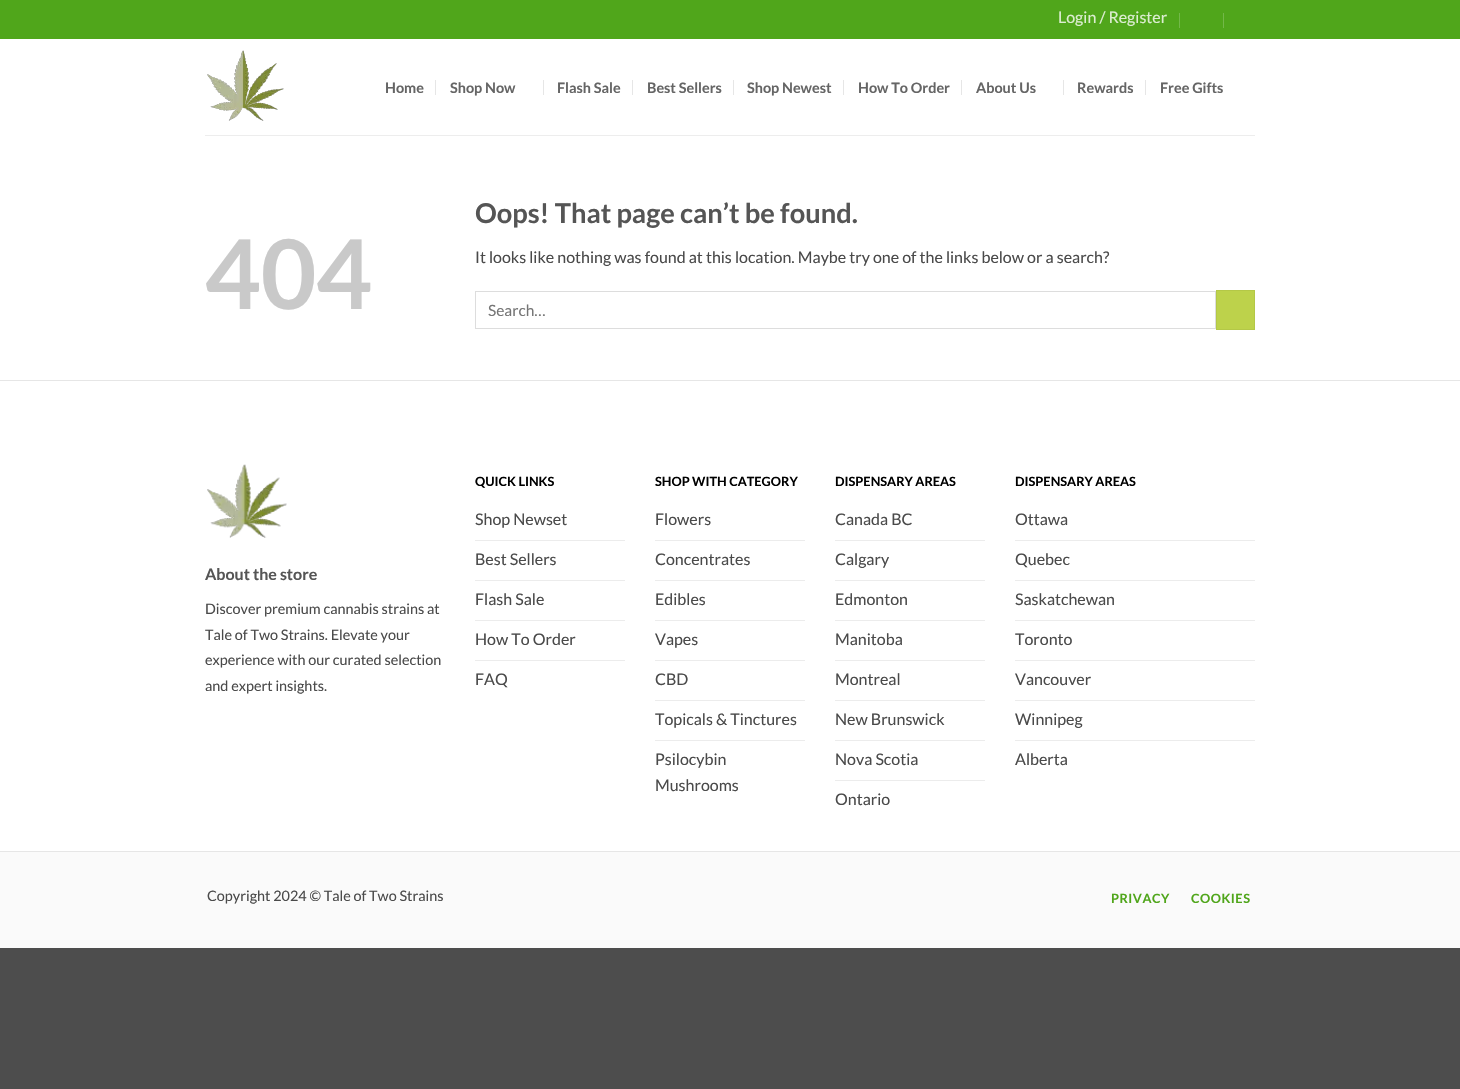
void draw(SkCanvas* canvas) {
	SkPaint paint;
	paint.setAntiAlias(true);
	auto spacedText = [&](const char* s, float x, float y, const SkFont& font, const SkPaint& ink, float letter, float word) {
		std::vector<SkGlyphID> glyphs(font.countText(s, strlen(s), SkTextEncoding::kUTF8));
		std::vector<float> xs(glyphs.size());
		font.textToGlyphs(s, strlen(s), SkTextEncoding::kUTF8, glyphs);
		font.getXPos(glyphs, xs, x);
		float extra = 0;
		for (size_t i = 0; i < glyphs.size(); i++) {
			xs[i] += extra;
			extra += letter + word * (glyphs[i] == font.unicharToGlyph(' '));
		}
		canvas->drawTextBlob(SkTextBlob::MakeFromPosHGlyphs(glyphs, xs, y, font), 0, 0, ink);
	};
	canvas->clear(0xff4d4d4d);
	paint.setColor(0xffffffff);
	canvas->drawRect(SkRect::MakeXYWH(0, 39, 1460, 812), paint);
	paint.setColor(0xff50a61b);
	canvas->drawRect(SkRect::MakeXYWH(0, 0, 1460, 39), paint);
	SkFont f1(fontMgr->matchFamilyStyle("Lato", SkFontStyle::Normal()), 16);
	f1.setSubpixel(true);
	paint.setColor(0xffdcedd1);
	canvas->drawString("Login / Register", 1058, 23, f1, paint);
	paint.setColor(0xff73b849);
	canvas->drawRect(SkRect::MakeXYWH(1179, 13, 1, 15), paint);
	canvas->drawRect(SkRect::MakeXYWH(1223, 13, 1, 15), paint);
	canvas->drawImageRect(SkImages::DeferredFromEncodedData(SkData::MakeFromFileName("img1.png")), SkRect::MakeXYWH(207, 50, 77, 71), SkSamplingOptions());
	SkFont f2(fontMgr->matchFamilyStyle("Lato", SkFontStyle::Bold()), 14.4);
	f2.setSubpixel(true);
	paint.setColor(0xff656565);
	canvas->drawString("Home", 385, 93, f2, paint);
	paint.setColor(0xffe6e6e6);
	canvas->drawRect(SkRect::MakeXYWH(435, 80, 1, 15), paint);
	paint.setColor(0xff656565);
	canvas->drawString("Shop Now", 450, 93, f2, paint);
	paint.setColor(0xffe6e6e6);
	canvas->drawRect(SkRect::MakeXYWH(543, 80, 1, 15), paint);
	paint.setColor(0xff656565);
	canvas->drawString("Flash Sale", 557, 93, f2, paint);
	paint.setColor(0xffe6e6e6);
	canvas->drawRect(SkRect::MakeXYWH(632, 80, 1, 15), paint);
	paint.setColor(0xff656565);
	canvas->drawString("Best Sellers", 647, 93, f2, paint);
	paint.setColor(0xffe6e6e6);
	canvas->drawRect(SkRect::MakeXYWH(733, 80, 1, 15), paint);
	paint.setColor(0xff656565);
	canvas->drawString("Shop Newest", 747, 93, f2, paint);
	paint.setColor(0xffe6e6e6);
	canvas->drawRect(SkRect::MakeXYWH(843, 80, 1, 15), paint);
	paint.setColor(0xff656565);
	canvas->drawString("How To Order", 858, 93, f2, paint);
	paint.setColor(0xffe6e6e6);
	canvas->drawRect(SkRect::MakeXYWH(961, 80, 1, 15), paint);
	paint.setColor(0xff656565);
	canvas->drawString("About Us", 976, 93, f2, paint);
	paint.setColor(0xffe6e6e6);
	canvas->drawRect(SkRect::MakeXYWH(1063, 80, 1, 15), paint);
	paint.setColor(0xff656565);
	canvas->drawString("Rewards", 1077, 93, f2, paint);
	paint.setColor(0xffe6e6e6);
	canvas->drawRect(SkRect::MakeXYWH(1145, 80, 1, 15), paint);
	paint.setColor(0xff656565);
	canvas->drawString("Free Gifts", 1160, 93, f2, paint);
	paint.setColor(0xffededed);
	canvas->drawRect(SkRect::MakeXYWH(205, 135, 1050, 1), paint);
	SkFont f3(fontMgr->matchFamilyStyle("Lato", SkFontStyle::Bold()), 96);
	f3.setSubpixel(true);
	paint.setColor(0xffc9c9c9);
	canvas->drawString("404", 205, 309, f3, paint);
	SkFont f4(fontMgr->matchFamilyStyle("Lato", SkFontStyle::Bold()), 27.25);
	f4.setSubpixel(true);
	paint.setColor(0xff555555);
	canvas->drawString("Oops! That page can’t be found.", 475, 223, f4, paint);
	paint.setColor(0xff4a4a4a);
	canvas->drawString("It looks like nothing was found at this location. Maybe try one of the links below or a search?", 475, 263, f1, paint);
	paint.setStroke(true);
	paint.setStrokeWidth(1);
	paint.setColor(0xffdddddd);
	canvas->drawRect(SkRect::MakeXYWH(475.5, 291.5, 740, 37), paint);
	SkFont f5(fontMgr->matchFamilyStyle("Lato", SkFontStyle::Normal()), 15.5);
	f5.setSubpixel(true);
	paint.setStroke(false);
	paint.setColor(0xff757575);
	canvas->drawString("Search…", 488, 316, f5, paint);
	paint.setColor(0xffbdd24b);
	canvas->drawRect(SkRect::MakeXYWH(1216.5, 290.5, 38, 39), paint);
	paint.setStroke(true);
	paint.setColor(0xffb4c847);
	canvas->drawRect(SkRect::MakeXYWH(1216.5, 290.5, 38, 39), paint);
	paint.setStroke(false);
	paint.setColor(0xffe6e6e6);
	canvas->drawRect(SkRect::MakeXYWH(0, 380, 1460, 1), paint);
	canvas->drawImageRect(SkImages::DeferredFromEncodedData(SkData::MakeFromFileName("img2.png")), SkRect::MakeXYWH(207, 464, 80, 74), SkSamplingOptions());
	SkFont f6(fontMgr->matchFamilyStyle("Lato", SkFontStyle::Bold()), 16);
	f6.setSubpixel(true);
	paint.setColor(0xff555555);
	canvas->drawString("About the store", 205, 580, f6, paint);
	SkFont f7(fontMgr->matchFamilyStyle("Lato", SkFontStyle::Normal()), 14.4);
	f7.setSubpixel(true);
	paint.setColor(0xff4a4a4a);
	canvas->drawString("Discover premium cannabis strains at", 205, 614, f7, paint);
	canvas->drawString("Tale of Two Strains. Elevate your", 205, 640, f7, paint);
	canvas->drawString("experience with our curated selection", 205, 665, f7, paint);
	canvas->drawString("and expert insights.", 205, 691, f7, paint);
	SkFont f8(fontMgr->matchFamilyStyle("Lato", SkFontStyle::Bold()), 12.75);
	f8.setSubpixel(true);
	paint.setColor(0xff000000);
	canvas->drawString("QUICK LINKS", 475, 486, f8, paint);
	paint.setColor(0xffececec);
	canvas->drawRect(SkRect::MakeXYWH(475, 540, 150, 1), paint);
	paint.setColor(0xff4a4a4a);
	canvas->drawString("Shop Newset", 475, 525, f1, paint);
	paint.setColor(0xffececec);
	canvas->drawRect(SkRect::MakeXYWH(475, 580, 150, 1), paint);
	paint.setColor(0xff4a4a4a);
	canvas->drawString("Best Sellers", 475, 565, f1, paint);
	paint.setColor(0xffececec);
	canvas->drawRect(SkRect::MakeXYWH(475, 620, 150, 1), paint);
	paint.setColor(0xff4a4a4a);
	canvas->drawString("Flash Sale", 475, 605, f1, paint);
	paint.setColor(0xffececec);
	canvas->drawRect(SkRect::MakeXYWH(475, 660, 150, 1), paint);
	paint.setColor(0xff4a4a4a);
	canvas->drawString("How To Order", 475, 645, f1, paint);
	canvas->drawString("FAQ", 475, 685, f1, paint);
	paint.setColor(0xff000000);
	canvas->drawString("SHOP WITH CATEGORY", 655, 486, f8, paint);
	paint.setColor(0xffececec);
	canvas->drawRect(SkRect::MakeXYWH(655, 540, 150, 1), paint);
	paint.setColor(0xff4a4a4a);
	canvas->drawString("Flowers", 655, 525, f1, paint);
	paint.setColor(0xffececec);
	canvas->drawRect(SkRect::MakeXYWH(655, 580, 150, 1), paint);
	paint.setColor(0xff4a4a4a);
	canvas->drawString("Concentrates", 655, 565, f1, paint);
	paint.setColor(0xffececec);
	canvas->drawRect(SkRect::MakeXYWH(655, 620, 150, 1), paint);
	paint.setColor(0xff4a4a4a);
	canvas->drawString("Edibles", 655, 605, f1, paint);
	paint.setColor(0xffececec);
	canvas->drawRect(SkRect::MakeXYWH(655, 660, 150, 1), paint);
	paint.setColor(0xff4a4a4a);
	canvas->drawString("Vapes", 655, 645, f1, paint);
	paint.setColor(0xffececec);
	canvas->drawRect(SkRect::MakeXYWH(655, 700, 150, 1), paint);
	paint.setColor(0xff4a4a4a);
	canvas->drawString("CBD", 655, 685, f1, paint);
	paint.setColor(0xffececec);
	canvas->drawRect(SkRect::MakeXYWH(655, 740, 150, 1), paint);
	paint.setColor(0xff4a4a4a);
	canvas->drawString("Topicals & Tinctures", 655, 725, f1, paint);
	canvas->drawString("Psilocybin", 655, 765, f1, paint);
	canvas->drawString("Mushrooms", 655, 791, f1, paint);
	paint.setColor(0xff000000);
	canvas->drawString("DISPENSARY AREAS", 835, 486, f8, paint);
	paint.setColor(0xffececec);
	canvas->drawRect(SkRect::MakeXYWH(835, 540, 150, 1), paint);
	paint.setColor(0xff4a4a4a);
	canvas->drawString("Canada BC", 835, 525, f1, paint);
	paint.setColor(0xffececec);
	canvas->drawRect(SkRect::MakeXYWH(835, 580, 150, 1), paint);
	paint.setColor(0xff4a4a4a);
	canvas->drawString("Calgary", 835, 565, f1, paint);
	paint.setColor(0xffececec);
	canvas->drawRect(SkRect::MakeXYWH(835, 620, 150, 1), paint);
	paint.setColor(0xff4a4a4a);
	canvas->drawString("Edmonton", 835, 605, f1, paint);
	paint.setColor(0xffececec);
	canvas->drawRect(SkRect::MakeXYWH(835, 660, 150, 1), paint);
	paint.setColor(0xff4a4a4a);
	canvas->drawString("Manitoba", 835, 645, f1, paint);
	paint.setColor(0xffececec);
	canvas->drawRect(SkRect::MakeXYWH(835, 700, 150, 1), paint);
	paint.setColor(0xff4a4a4a);
	canvas->drawString("Montreal", 835, 685, f1, paint);
	paint.setColor(0xffececec);
	canvas->drawRect(SkRect::MakeXYWH(835, 740, 150, 1), paint);
	paint.setColor(0xff4a4a4a);
	canvas->drawString("New Brunswick", 835, 725, f1, paint);
	paint.setColor(0xffececec);
	canvas->drawRect(SkRect::MakeXYWH(835, 780, 150, 1), paint);
	paint.setColor(0xff4a4a4a);
	canvas->drawString("Nova Scotia", 835, 765, f1, paint);
	canvas->drawString("Ontario", 835, 805, f1, paint);
	paint.setColor(0xff000000);
	canvas->drawString("DISPENSARY AREAS", 1015, 486, f8, paint);
	paint.setColor(0xffececec);
	canvas->drawRect(SkRect::MakeXYWH(1015, 540, 240, 1), paint);
	paint.setColor(0xff4a4a4a);
	canvas->drawString("Ottawa", 1015, 525, f1, paint);
	paint.setColor(0xffececec);
	canvas->drawRect(SkRect::MakeXYWH(1015, 580, 240, 1), paint);
	paint.setColor(0xff4a4a4a);
	canvas->drawString("Quebec", 1015, 565, f1, paint);
	paint.setColor(0xffececec);
	canvas->drawRect(SkRect::MakeXYWH(1015, 620, 240, 1), paint);
	paint.setColor(0xff4a4a4a);
	canvas->drawString("Saskatchewan", 1015, 605, f1, paint);
	paint.setColor(0xffececec);
	canvas->drawRect(SkRect::MakeXYWH(1015, 660, 240, 1), paint);
	paint.setColor(0xff4a4a4a);
	canvas->drawString("Toronto", 1015, 645, f1, paint);
	paint.setColor(0xffececec);
	canvas->drawRect(SkRect::MakeXYWH(1015, 700, 240, 1), paint);
	paint.setColor(0xff4a4a4a);
	canvas->drawString("Vancouver", 1015, 685, f1, paint);
	paint.setColor(0xffececec);
	canvas->drawRect(SkRect::MakeXYWH(1015, 740, 240, 1), paint);
	paint.setColor(0xff4a4a4a);
	canvas->drawString("Winnipeg", 1015, 725, f1, paint);
	canvas->drawString("Alberta", 1015, 765, f1, paint);
	paint.setColor(0xffe6e6e6);
	canvas->drawRect(SkRect::MakeXYWH(0, 851, 1460, 1), paint);
	paint.setColor(0xfffafafa);
	canvas->drawRect(SkRect::MakeXYWH(0, 852, 1460, 96), paint);
	paint.setColor(0xff4a4a4a);
	canvas->drawString("Copyright 2024 © Tale of Two Strains", 207, 901, f7, paint);
	paint.setColor(0xff50a61b);
	spacedText("PRIVACY", 1111, 903, f8, paint, 0.5, 0);
	spacedText("COOKIES", 1191, 903, f8, paint, 0.5, 0);
}
